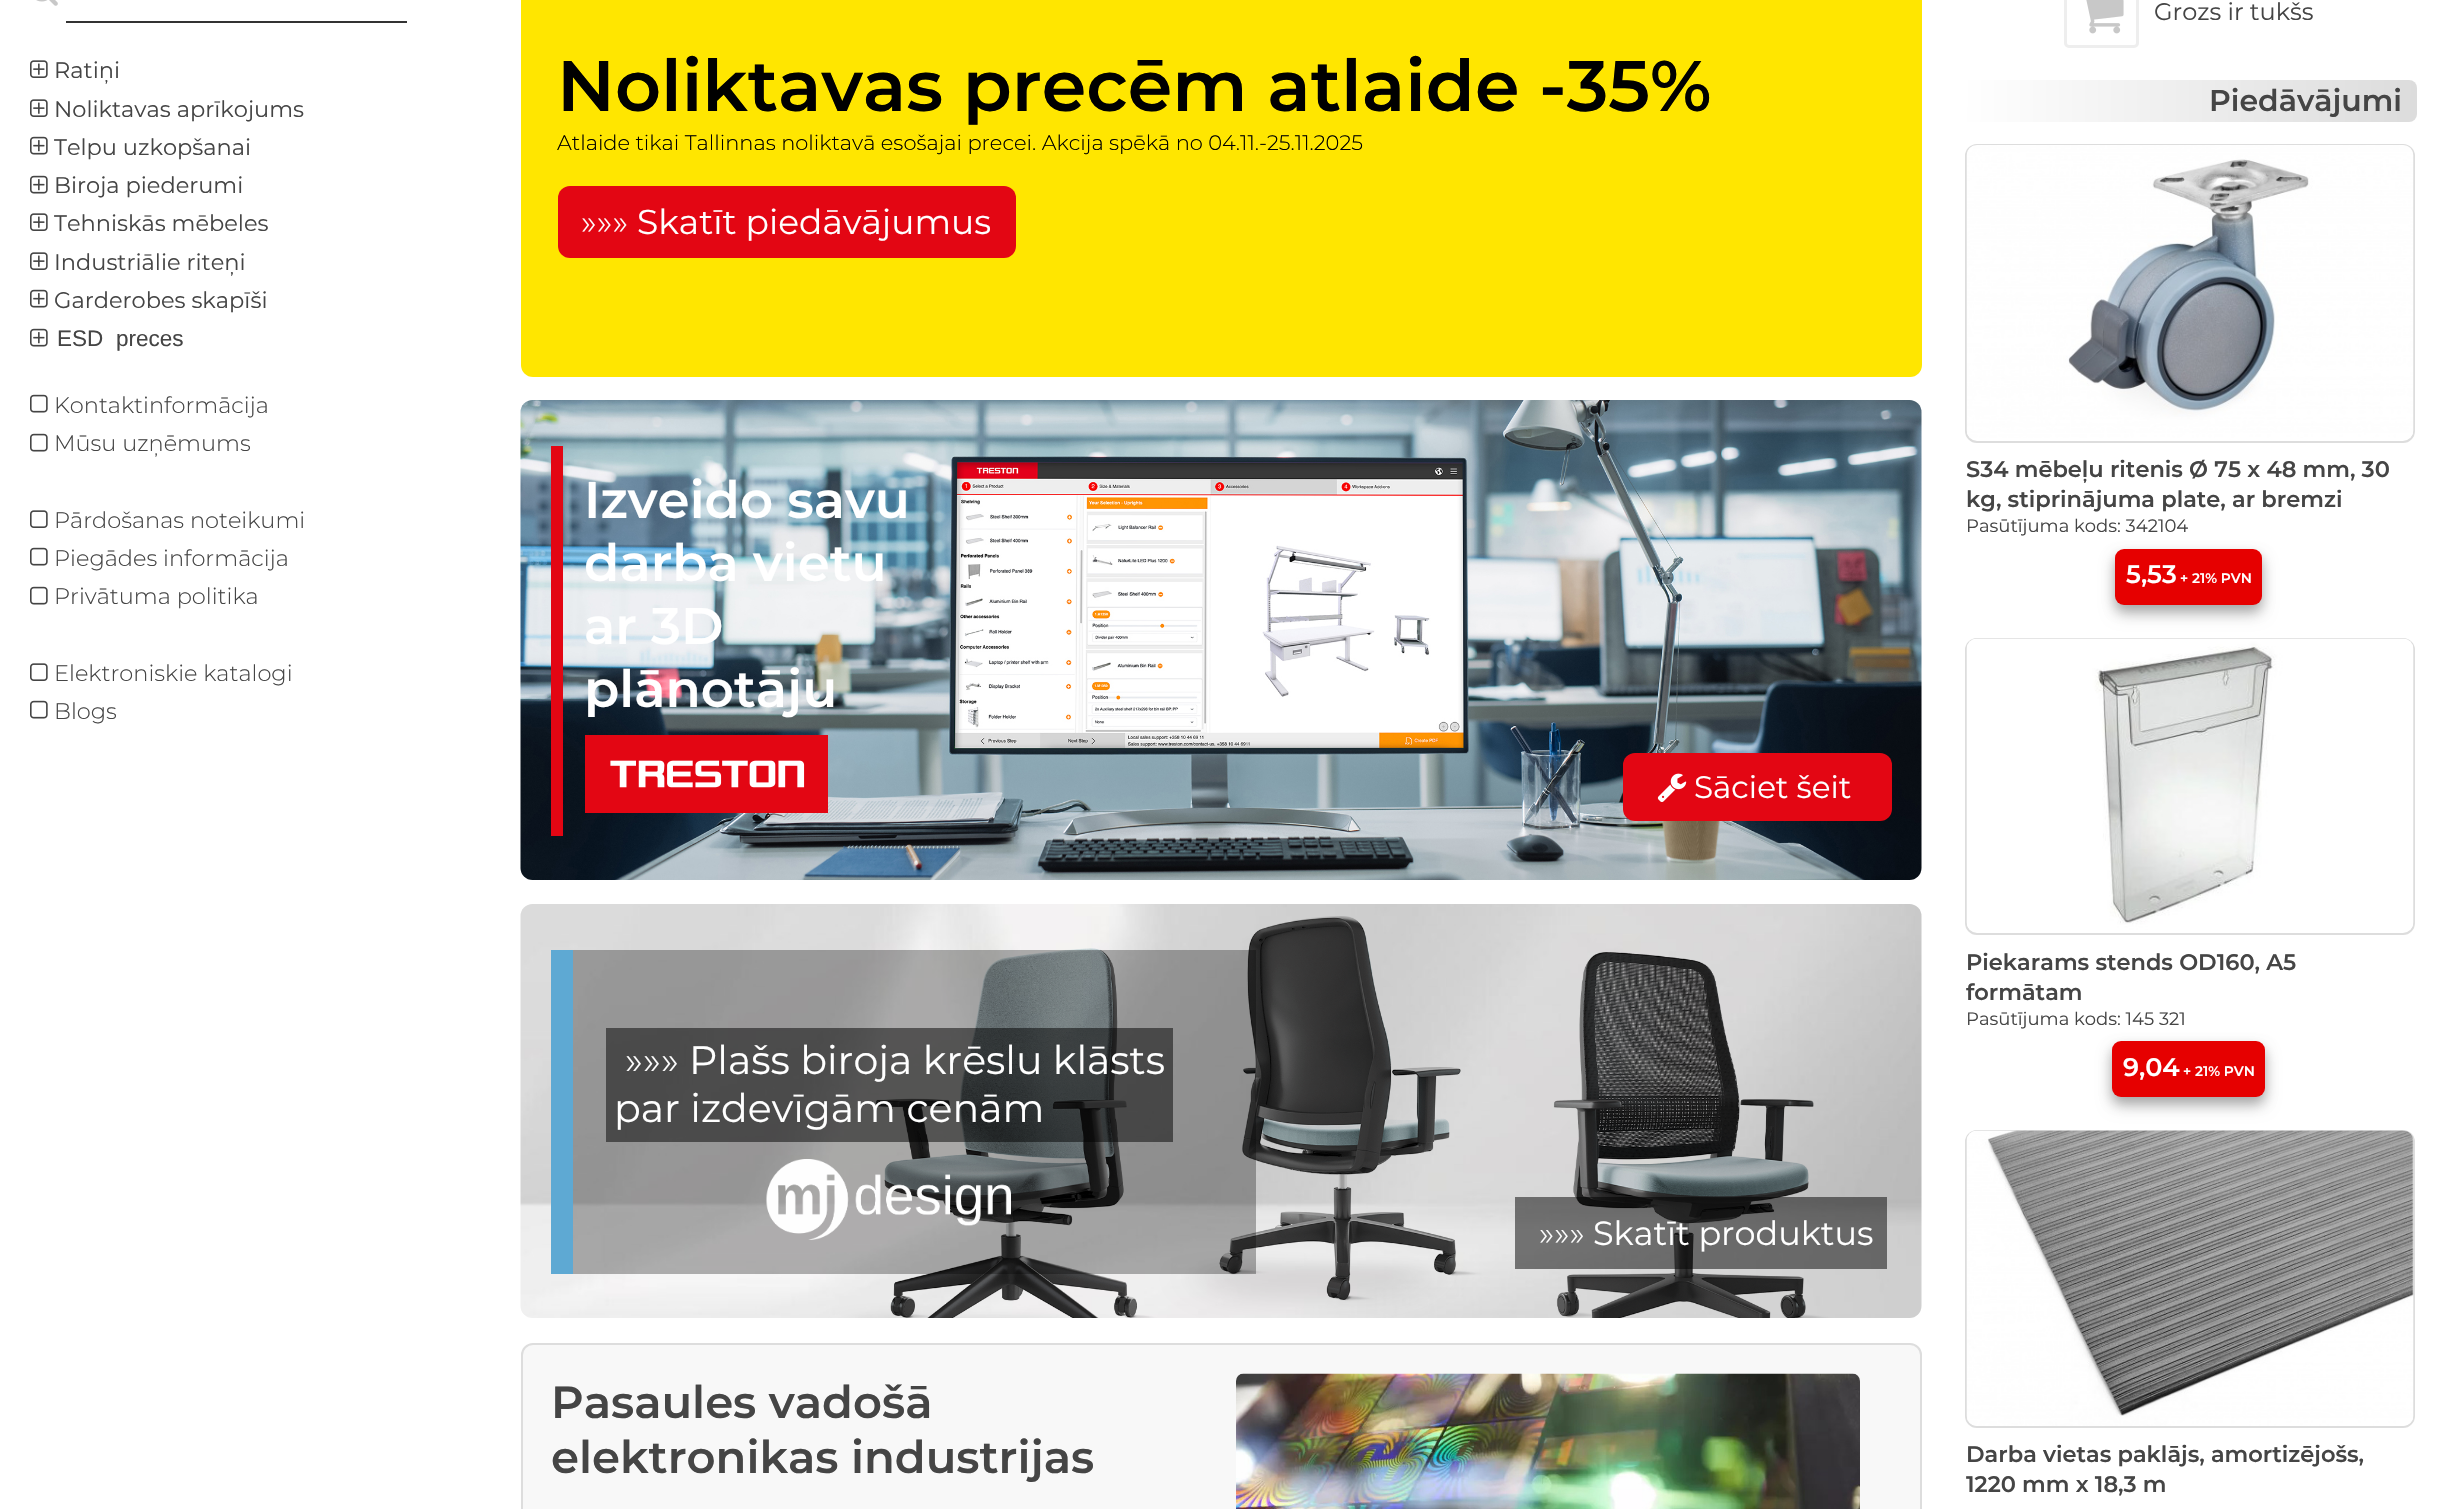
void draw(SkCanvas* canvas) {
	SkPaint paint;
	paint.setAntiAlias(true);
	canvas->clear(0xffffffff);
	canvas->drawImageRect(SkImages::DeferredFromEncodedData(SkData::MakeFromFileName("img1.png")), SkRect::MakeXYWH(36, 0, 22, 6), SkSamplingOptions());
	paint.setColor(0xff333333);
	canvas->drawRect(SkRect::MakeXYWH(66, 21, 341, 2), paint);
	canvas->drawImageRect(SkImages::DeferredFromEncodedData(SkData::MakeFromFileName("img2.png")), SkRect::MakeXYWH(30, 60, 18, 18), SkSamplingOptions());
	SkFont f1(fontMgr->matchFamilyStyle("Montserrat", SkFontStyle::Normal()), 22.5);
	f1.setSubpixel(true);
	paint.setColor(0xff454545);
	canvas->drawString("Ratiņi", 54, 78, f1, paint);
	canvas->drawImageRect(SkImages::DeferredFromEncodedData(SkData::MakeFromFileName("img2.png")), SkRect::MakeXYWH(30, 99, 18, 18), SkSamplingOptions());
	canvas->drawString("Noliktavas aprīkojums", 54, 117, f1, paint);
	canvas->drawImageRect(SkImages::DeferredFromEncodedData(SkData::MakeFromFileName("img3.png")), SkRect::MakeXYWH(30, 136, 18, 19), SkSamplingOptions());
	canvas->drawString("Telpu uzkopšanai", 54, 155, f1, paint);
	canvas->drawImageRect(SkImages::DeferredFromEncodedData(SkData::MakeFromFileName("img3.png")), SkRect::MakeXYWH(30, 175, 18, 19), SkSamplingOptions());
	canvas->drawString("Biroja piederumi", 54, 193, f1, paint);
	canvas->drawImageRect(SkImages::DeferredFromEncodedData(SkData::MakeFromFileName("img2.png")), SkRect::MakeXYWH(30, 213, 18, 18), SkSamplingOptions());
	canvas->drawString("Tehniskās mēbeles", 54, 231, f1, paint);
	canvas->drawImageRect(SkImages::DeferredFromEncodedData(SkData::MakeFromFileName("img2.png")), SkRect::MakeXYWH(30, 252, 18, 18), SkSamplingOptions());
	canvas->drawString("Industriālie riteņi", 54, 270, f1, paint);
	canvas->drawImageRect(SkImages::DeferredFromEncodedData(SkData::MakeFromFileName("img3.png")), SkRect::MakeXYWH(30, 289, 18, 19), SkSamplingOptions());
	canvas->drawString("Garderobes skapīši", 54, 308, f1, paint);
	canvas->drawImageRect(SkImages::DeferredFromEncodedData(SkData::MakeFromFileName("img3.png")), SkRect::MakeXYWH(30, 328, 18, 19), SkSamplingOptions());
	SkFont f2(fontMgr->matchFamilyStyle("Liberation Sans", SkFontStyle::Normal()), 22.5);
	f2.setSubpixel(true);
	canvas->drawString("ESD", 57, 346, f2, paint);
	canvas->drawString("‑", 103, 346, f1, paint);
	canvas->drawString("preces", 116, 346, f2, paint);
	canvas->drawImageRect(SkImages::DeferredFromEncodedData(SkData::MakeFromFileName("img4.png")), SkRect::MakeXYWH(30, 394, 18, 19), SkSamplingOptions());
	SkFont f3(fontMgr->matchFamilyStyle("Montserrat", SkFontStyle(300, SkFontStyle::kNormal_Width, SkFontStyle::kUpright_Slant)), 22.5);
	f3.setSubpixel(true);
	canvas->drawString("Kontaktinformācija", 54, 413, f3, paint);
	canvas->drawImageRect(SkImages::DeferredFromEncodedData(SkData::MakeFromFileName("img4.png")), SkRect::MakeXYWH(30, 433, 18, 19), SkSamplingOptions());
	canvas->drawString("Mūsu uzņēmums", 54, 451, f3, paint);
	canvas->drawImageRect(SkImages::DeferredFromEncodedData(SkData::MakeFromFileName("img5.png")), SkRect::MakeXYWH(30, 510, 18, 18), SkSamplingOptions());
	canvas->drawString("Pārdošanas noteikumi", 54, 528, f3, paint);
	canvas->drawImageRect(SkImages::DeferredFromEncodedData(SkData::MakeFromFileName("img4.png")), SkRect::MakeXYWH(30, 547, 18, 19), SkSamplingOptions());
	canvas->drawString("Piegādes informācija", 54, 566, f3, paint);
	canvas->drawImageRect(SkImages::DeferredFromEncodedData(SkData::MakeFromFileName("img4.png")), SkRect::MakeXYWH(30, 586, 18, 19), SkSamplingOptions());
	canvas->drawString("Privātuma politika", 54, 604, f3, paint);
	canvas->drawImageRect(SkImages::DeferredFromEncodedData(SkData::MakeFromFileName("img5.png")), SkRect::MakeXYWH(30, 663, 18, 18), SkSamplingOptions());
	canvas->drawString("Elektroniskie katalogi", 54, 681, f3, paint);
	canvas->drawImageRect(SkImages::DeferredFromEncodedData(SkData::MakeFromFileName("img4.png")), SkRect::MakeXYWH(30, 700, 18, 19), SkSamplingOptions());
	canvas->drawString("Blogs", 54, 719, f3, paint);
	paint.setColor(0xffffe600);
	canvas->drawRoundRect(SkRect::MakeXYWH(521, -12, 1401, 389), 12, 12, paint);
	SkFont f4(fontMgr->matchFamilyStyle("Montserrat", SkFontStyle(600, SkFontStyle::kNormal_Width, SkFontStyle::kUpright_Slant)), 71.5);
	f4.setSubpixel(true);
	paint.setColor(0xff000000);
	canvas->drawString("Noliktavas precēm atlaide -35%", 557, 111, f4, paint);
	SkFont f5(fontMgr->matchFamilyStyle("Montserrat", SkFontStyle(300, SkFontStyle::kNormal_Width, SkFontStyle::kUpright_Slant)), 21);
	f5.setSubpixel(true);
	canvas->drawString("Atlaide tikai Tallinnas noliktavā esošajai precei. Akcija spēkā no 04.11.-25.11.2025", 557, 150, f5, paint);
	paint.setColor(0xffe30613);
	canvas->drawRoundRect(SkRect::MakeXYWH(558, 186, 458, 72), 12, 12, paint);
	SkFont f6(fontMgr->matchFamilyStyle("Montserrat", SkFontStyle(300, SkFontStyle::kNormal_Width, SkFontStyle::kUpright_Slant)), 34.5);
	f6.setSubpixel(true);
	paint.setColor(0xffffffff);
	canvas->drawString("»»»", 581, 234, f6, paint);
	SkFont f7(fontMgr->matchFamilyStyle("Montserrat", SkFontStyle::Normal()), 34.5);
	f7.setSubpixel(true);
	canvas->drawString("Skatīt piedāvājumus", 637, 234, f7, paint);
	canvas->drawImageRect(SkImages::DeferredFromEncodedData(SkData::MakeFromFileName("img6.png")), SkRect::MakeXYWH(520, 400, 1402, 480), SkSamplingOptions());
	paint.setColor(0xffe30613);
	canvas->drawRect(SkRect::MakeXYWH(551, 446, 12, 390), paint);
	SkFont f8(fontMgr->matchFamilyStyle("Montserrat", SkFontStyle(600, SkFontStyle::kNormal_Width, SkFontStyle::kUpright_Slant)), 51.5);
	f8.setSubpixel(true);
	paint.setColor(0xffffffff);
	canvas->drawString("Izveido savu", 584, 518, f8, paint);
	canvas->drawString("darba vietu", 584, 581, f8, paint);
	canvas->drawString("ar 3D", 584, 644, f8, paint);
	canvas->drawString("plānotāju", 584, 707, f8, paint);
	canvas->drawImageRect(SkImages::DeferredFromEncodedData(SkData::MakeFromFileName("img7.png")), SkRect::MakeXYWH(585, 735, 243, 78), SkSamplingOptions());
	paint.setColor(0xffe30613);
	canvas->drawRoundRect(SkRect::MakeXYWH(1623, 753, 269, 68), 12, 12, paint);
	canvas->drawImageRect(SkImages::DeferredFromEncodedData(SkData::MakeFromFileName("img8.png")), SkRect::MakeXYWH(1657, 773, 30, 29), SkSamplingOptions());
	SkFont f9(fontMgr->matchFamilyStyle("Montserrat", SkFontStyle::Normal()), 31);
	f9.setSubpixel(true);
	paint.setColor(0xffffffff);
	canvas->drawString("Sāciet šeit", 1694, 798, f9, paint);
	canvas->drawImageRect(SkImages::DeferredFromEncodedData(SkData::MakeFromFileName("img9.png")), SkRect::MakeXYWH(520, 904, 1402, 414), SkSamplingOptions());
	paint.setColor(0x4d000000);
	canvas->drawRect(SkRect::MakeXYWH(573, 950, 683, 324), paint);
	paint.setColor(0xff5ea9d3);
	canvas->drawRect(SkRect::MakeXYWH(551, 950, 22, 324), paint);
	paint.setColor(0x80000000);
	canvas->drawRect(SkRect::MakeXYWH(606, 1028, 567, 114), paint);
	SkFont f10(fontMgr->matchFamilyStyle("Montserrat", SkFontStyle(300, SkFontStyle::kNormal_Width, SkFontStyle::kUpright_Slant)), 39.5);
	f10.setSubpixel(true);
	paint.setColor(0xffffffff);
	canvas->drawString("»»»", 625, 1074, f10, paint);
	SkFont f11(fontMgr->matchFamilyStyle("Montserrat", SkFontStyle::Normal()), 39.5);
	f11.setSubpixel(true);
	canvas->drawString("Plašs biroja krēslu klāsts", 689, 1074, f11, paint);
	canvas->drawString("par izdevīgām cenām", 614, 1122, f11, paint);
	canvas->drawImageRect(SkImages::DeferredFromEncodedData(SkData::MakeFromFileName("img10.png")), SkRect::MakeXYWH(766, 1159, 245, 81), SkSamplingOptions());
	paint.setColor(0x80000000);
	canvas->drawRect(SkRect::MakeXYWH(1515, 1197, 372, 72), paint);
	SkFont f12(fontMgr->matchFamilyStyle("Montserrat", SkFontStyle(300, SkFontStyle::kNormal_Width, SkFontStyle::kUpright_Slant)), 33.5);
	f12.setSubpixel(true);
	paint.setColor(0xffffffff);
	canvas->drawString("»»»", 1539, 1245, f12, paint);
	SkFont f13(fontMgr->matchFamilyStyle("Montserrat", SkFontStyle::Normal()), 33.5);
	f13.setSubpixel(true);
	canvas->drawString("Skatīt produktus", 1593, 1245, f13, paint);
	paint.setColor(0xfff8f8f8);
	canvas->drawRoundRect(SkRect::MakeXYWH(522, 1344, 1399, 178), 11, 11, paint);
	paint.setStroke(true);
	paint.setStrokeWidth(2);
	paint.setColor(0xffdddddd);
	canvas->drawRoundRect(SkRect::MakeXYWH(522, 1344, 1399, 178), 11, 11, paint);
	SkFont f14(fontMgr->matchFamilyStyle("Montserrat", SkFontStyle(600, SkFontStyle::kNormal_Width, SkFontStyle::kUpright_Slant)), 45);
	f14.setSubpixel(true);
	paint.setStroke(false);
	paint.setColor(0xff454545);
	canvas->drawString("Pasaules vadošā", 551, 1418, f14, paint);
	canvas->drawString("elektronikas industrijas", 551, 1473, f14, paint);
	canvas->drawImageRect(SkImages::DeferredFromEncodedData(SkData::MakeFromFileName("img11.png")), SkRect::MakeXYWH(1236, 1373, 624, 136), SkSamplingOptions());
	paint.setStroke(true);
	paint.setStrokeWidth(3);
	paint.setColor(0xffeeeeee);
	canvas->drawRoundRect(SkRect::MakeXYWH(2065.5, -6.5, 72, 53), 3.5, 3.5, paint);
	canvas->drawImageRect(SkImages::DeferredFromEncodedData(SkData::MakeFromFileName("img12.png")), SkRect::MakeXYWH(2086, 0, 38, 34), SkSamplingOptions());
	SkFont f15(fontMgr->matchFamilyStyle("Montserrat", SkFontStyle::Normal()), 24);
	f15.setSubpixel(true);
	paint.setStroke(false);
	paint.setColor(0xff454545);
	canvas->drawString("Grozs ir tukšs", 2154, 20, f15, paint);
	{
		const SkColor colors[] = {0xffdcdcdc, 0xffffffff};
		const float stops[] = {0, 1};
		const SkPoint ends[] = {{2417, 101}, {1961, 100}};
		paint.setShader(SkGradientShader::MakeLinear(ends, colors, stops, 2, SkTileMode::kClamp));
		paint.setAlpha(255);
	}
	canvas->drawRoundRect(SkRect::MakeXYWH(1961, 80, 456, 42), 8, 8, paint);
	SkFont f16(fontMgr->matchFamilyStyle("Montserrat", SkFontStyle(600, SkFontStyle::kNormal_Width, SkFontStyle::kUpright_Slant)), 30);
	f16.setSubpixel(true);
	paint.setShader(nullptr);
	paint.setColor(0xff454545);
	canvas->drawString("Piedāvājumi", 2209, 111, f16, paint);
	paint.setStroke(true);
	paint.setStrokeWidth(2);
	paint.setColor(0xffdddddd);
	canvas->drawRoundRect(SkRect::MakeXYWH(1966, 145, 448, 297), 11, 11, paint);
	canvas->drawImageRect(SkImages::DeferredFromEncodedData(SkData::MakeFromFileName("img13.png")), SkRect::MakeXYWH(1966, 145, 448, 293), SkSamplingOptions());
	SkFont f17(fontMgr->matchFamilyStyle("Montserrat", SkFontStyle(600, SkFontStyle::kNormal_Width, SkFontStyle::kUpright_Slant)), 22.5);
	f17.setSubpixel(true);
	paint.setStroke(false);
	paint.setColor(0xff454545);
	canvas->drawString("S34 mēbeļu ritenis Ø 75 x 48 mm, 30", 1966, 477, f17, paint);
	canvas->drawString("kg, stiprinājuma plate, ar bremzi", 1966, 507, f17, paint);
	paint.setColor(0x30000000);
	paint.setMaskFilter(SkMaskFilter::MakeBlur(kNormal_SkBlurStyle, 7.5));
	canvas->drawRoundRect(SkRect::MakeXYWH(2115, 558, 147, 56), 9, 9, paint);
	paint.setMaskFilter(nullptr);
	SkFont f18(fontMgr->matchFamilyStyle("Montserrat", SkFontStyle::Normal()), 18);
	f18.setSubpixel(true);
	paint.setColor(0xff454545);
	canvas->drawString("Pasūtījuma kods: 342104", 1966, 532, f18, paint);
	paint.setColor(0x33000000);
	paint.setMaskFilter(SkMaskFilter::MakeBlur(kNormal_SkBlurStyle, 6));
	canvas->drawRoundRect(SkRect::MakeXYWH(2115, 555, 147, 56), 9, 9, paint);
	paint.setMaskFilter(nullptr);
	paint.setColor(0xffe60000);
	canvas->drawRoundRect(SkRect::MakeXYWH(2115, 549, 147, 56), 9, 9, paint);
	SkFont f19(fontMgr->matchFamilyStyle("Montserrat", SkFontStyle(600, SkFontStyle::kNormal_Width, SkFontStyle::kUpright_Slant)), 25.5);
	f19.setSubpixel(true);
	paint.setColor(0xffffffff);
	canvas->drawString("5,53", 2126, 583, f19, paint);
	SkFont f20(fontMgr->matchFamilyStyle("Montserrat", SkFontStyle(600, SkFontStyle::kNormal_Width, SkFontStyle::kUpright_Slant)), 13.75);
	f20.setSubpixel(true);
	canvas->drawString("+ 21% PVN", 2180, 583, f20, paint);
	paint.setStroke(true);
	paint.setColor(0xffdddddd);
	canvas->drawRoundRect(SkRect::MakeXYWH(1966, 639, 448, 295), 11, 11, paint);
	canvas->drawImageRect(SkImages::DeferredFromEncodedData(SkData::MakeFromFileName("img14.png")), SkRect::MakeXYWH(1966, 638, 448, 292), SkSamplingOptions());
	paint.setStroke(false);
	paint.setColor(0xff454545);
	canvas->drawString("Piekarams stends OD160, A5", 1966, 970, f17, paint);
	canvas->drawString("formātam", 1966, 1000, f17, paint);
	paint.setColor(0x30000000);
	paint.setMaskFilter(SkMaskFilter::MakeBlur(kNormal_SkBlurStyle, 7.5));
	canvas->drawRoundRect(SkRect::MakeXYWH(2112, 1050, 153, 56), 9, 9, paint);
	paint.setMaskFilter(nullptr);
	paint.setColor(0x33000000);
	paint.setMaskFilter(SkMaskFilter::MakeBlur(kNormal_SkBlurStyle, 6));
	canvas->drawRoundRect(SkRect::MakeXYWH(2112, 1047, 153, 56), 9, 9, paint);
	paint.setMaskFilter(nullptr);
	paint.setColor(0xff454545);
	canvas->drawString("Pasūtījuma kods: 145 321", 1966, 1025, f18, paint);
	paint.setColor(0xffe60000);
	canvas->drawRoundRect(SkRect::MakeXYWH(2112, 1041, 153, 56), 9, 9, paint);
	paint.setColor(0xffffffff);
	canvas->drawString("9,04", 2123, 1076, f19, paint);
	canvas->drawString("+ 21% PVN", 2183, 1076, f20, paint);
	paint.setStroke(true);
	paint.setColor(0xffdddddd);
	canvas->drawRoundRect(SkRect::MakeXYWH(1966, 1131, 448, 296), 11, 11, paint);
	canvas->drawImageRect(SkImages::DeferredFromEncodedData(SkData::MakeFromFileName("img15.png")), SkRect::MakeXYWH(1966, 1130, 448, 296), SkSamplingOptions());
	paint.setStroke(false);
	paint.setColor(0xff454545);
	canvas->drawString("Darba vietas paklājs, amortizējošs,", 1966, 1462, f17, paint);
	canvas->drawString("1220 mm x 18,3 m", 1966, 1492, f17, paint);
}
